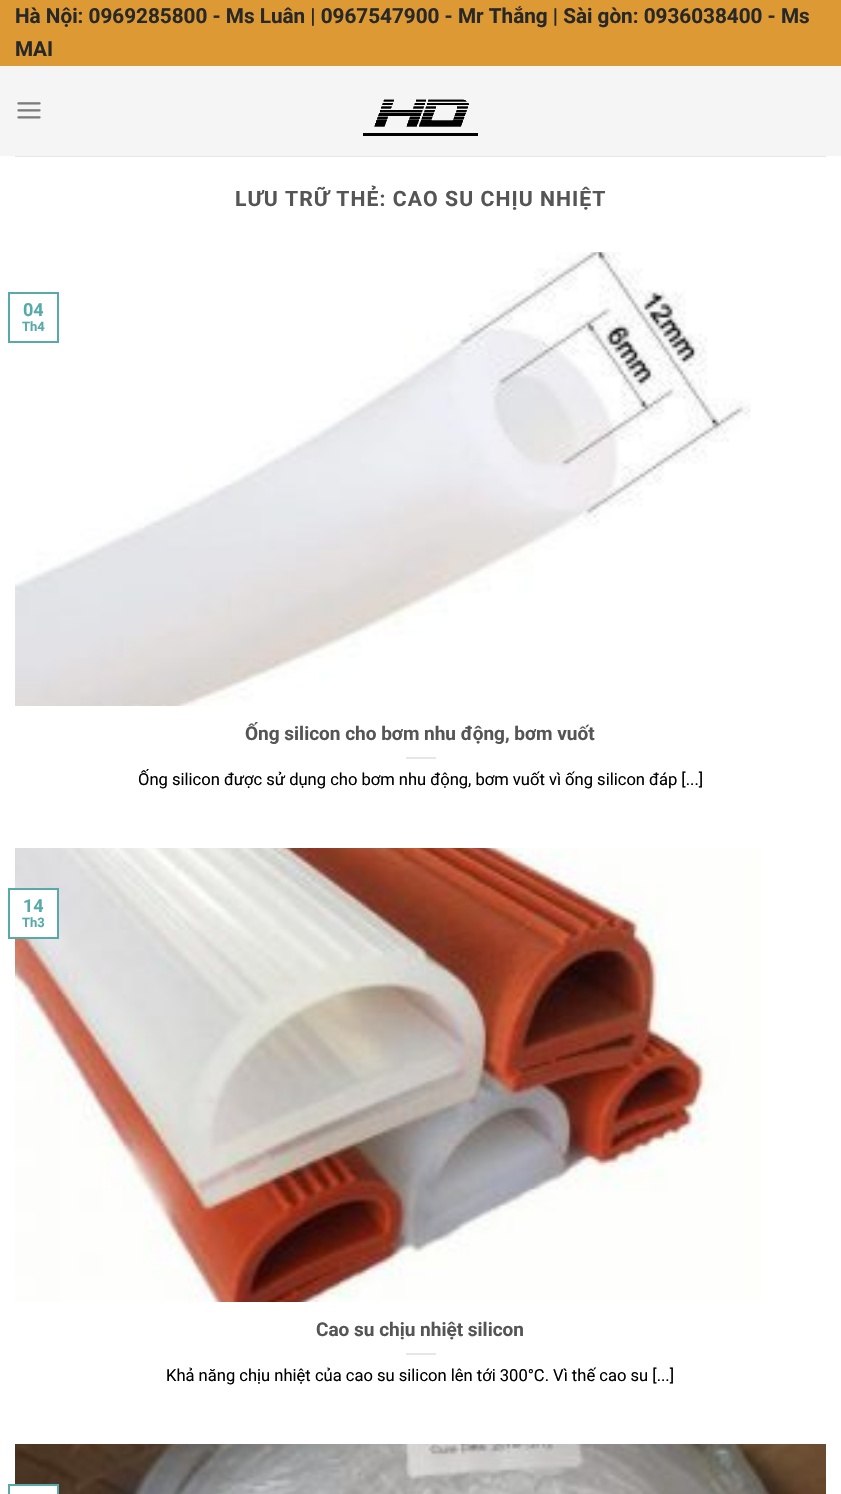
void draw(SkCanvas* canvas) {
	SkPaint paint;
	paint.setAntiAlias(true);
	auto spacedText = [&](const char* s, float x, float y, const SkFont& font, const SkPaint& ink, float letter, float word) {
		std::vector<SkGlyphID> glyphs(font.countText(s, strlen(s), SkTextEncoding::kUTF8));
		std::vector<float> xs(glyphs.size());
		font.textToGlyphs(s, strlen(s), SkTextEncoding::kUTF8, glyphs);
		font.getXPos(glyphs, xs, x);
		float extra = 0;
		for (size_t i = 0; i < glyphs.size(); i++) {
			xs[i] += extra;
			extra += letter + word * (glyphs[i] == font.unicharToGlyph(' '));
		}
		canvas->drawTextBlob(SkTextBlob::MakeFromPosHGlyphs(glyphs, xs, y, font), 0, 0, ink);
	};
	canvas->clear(0xffffffff);
	paint.setColor(0xffdd9933);
	canvas->drawRect(SkRect::MakeXYWH(0, 0, 841, 66), paint);
	SkFont f1(fontMgr->matchFamilyStyle("Roboto", SkFontStyle::Bold()), 20.7);
	f1.setSubpixel(true);
	paint.setColor(0xff282828);
	canvas->drawString("Hà Nội: 0969285800 - Ms Luân | 0967547900 - Mr Thắng | Sài gòn: 0936038400 - Ms", 15, 23, f1, paint);
	canvas->drawString("MAI", 15, 56, f1, paint);
	paint.setColor(0xfff5f5f5);
	canvas->drawRect(SkRect::MakeXYWH(0, 66, 841, 90), paint);
	canvas->drawImageRect(SkImages::DeferredFromEncodedData(SkData::MakeFromFileName("img1.png")), SkRect::MakeXYWH(17, 102, 24, 17), SkSamplingOptions());
	canvas->drawImageRect(SkImages::DeferredFromEncodedData(SkData::MakeFromFileName("img2.png")), SkRect::MakeXYWH(363, 99, 115, 37), SkSamplingOptions());
	paint.setColor(0xffe6e6e6);
	canvas->drawRect(SkRect::MakeXYWH(15, 156, 811, 1), paint);
	SkFont f2(fontMgr->matchFamilyStyle("Roboto", SkFontStyle::Bold()), 21.2);
	f2.setSubpixel(true);
	paint.setColor(0xff555555);
	spacedText("LƯU TRỮ THẺ: CAO SU CHỊU NHIỆT", 235, 206, f2, paint, 1.05, 0);
	canvas->drawImageRect(SkImages::DeferredFromEncodedData(SkData::MakeFromFileName("img3.png")), SkRect::MakeXYWH(15, 252, 736, 454), SkSamplingOptions());
	paint.setStroke(true);
	paint.setStrokeWidth(2);
	paint.setColor(0xff58aaaa);
	canvas->drawRect(SkRect::MakeXYWH(9, 293, 49, 49), paint);
	SkFont f3(fontMgr->matchFamilyStyle("Roboto", SkFontStyle::Bold()), 18);
	f3.setSubpixel(true);
	paint.setStroke(false);
	canvas->drawString("04", 23, 316, f3, paint);
	SkFont f4(fontMgr->matchFamilyStyle("Roboto", SkFontStyle::Bold()), 13);
	f4.setSubpixel(true);
	canvas->drawString("Th4", 22, 331, f4, paint);
	SkFont f5(fontMgr->matchFamilyStyle("Roboto", SkFontStyle::Bold()), 19);
	f5.setSubpixel(true);
	paint.setColor(0xff555555);
	canvas->drawString("Ống silicon cho bơm nhu động, bơm vuốt", 245, 740, f5, paint);
	paint.setColor(0xffe6e6e6);
	canvas->drawRect(SkRect::MakeXYWH(406, 757, 30, 2), paint);
	SkFont f6(fontMgr->matchFamilyStyle("Roboto", SkFontStyle::Normal()), 16.55);
	f6.setSubpixel(true);
	paint.setColor(0xff000000);
	canvas->drawString("Ống silicon được sử dụng cho bơm nhu động, bơm vuốt vì ống silicon đáp [...]", 138, 785, f6, paint);
	canvas->drawImageRect(SkImages::DeferredFromEncodedData(SkData::MakeFromFileName("img4.png")), SkRect::MakeXYWH(15, 848, 746, 454), SkSamplingOptions());
	paint.setColor(0xffffffff);
	canvas->drawRect(SkRect::MakeXYWH(15, 890, 42, 47), paint);
	paint.setStroke(true);
	paint.setColor(0xff58aaaa);
	canvas->drawRect(SkRect::MakeXYWH(9, 889, 49, 49), paint);
	paint.setStroke(false);
	canvas->drawString("14", 23, 912, f3, paint);
	canvas->drawString("Th3", 22, 927, f4, paint);
	paint.setColor(0xff555555);
	canvas->drawString("Cao su chịu nhiệt silicon", 316, 1336, f5, paint);
	paint.setColor(0xffe6e6e6);
	canvas->drawRect(SkRect::MakeXYWH(406, 1353, 30, 2), paint);
	paint.setColor(0xff000000);
	canvas->drawString("Khả năng chịu nhiệt của cao su silicon lên tới 300°C. Vì thế cao su [...]", 166, 1381, f6, paint);
	canvas->drawImageRect(SkImages::DeferredFromEncodedData(SkData::MakeFromFileName("img5.png")), SkRect::MakeXYWH(15, 1444, 811, 50), SkSamplingOptions());
	paint.setColor(0xffffffff);
	canvas->drawRect(SkRect::MakeXYWH(9, 1485, 49, 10), paint);
	paint.setStroke(true);
	paint.setColor(0xff58aaaa);
	canvas->drawRect(SkRect::MakeXYWH(9, 1485, 49, 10), paint);
}
